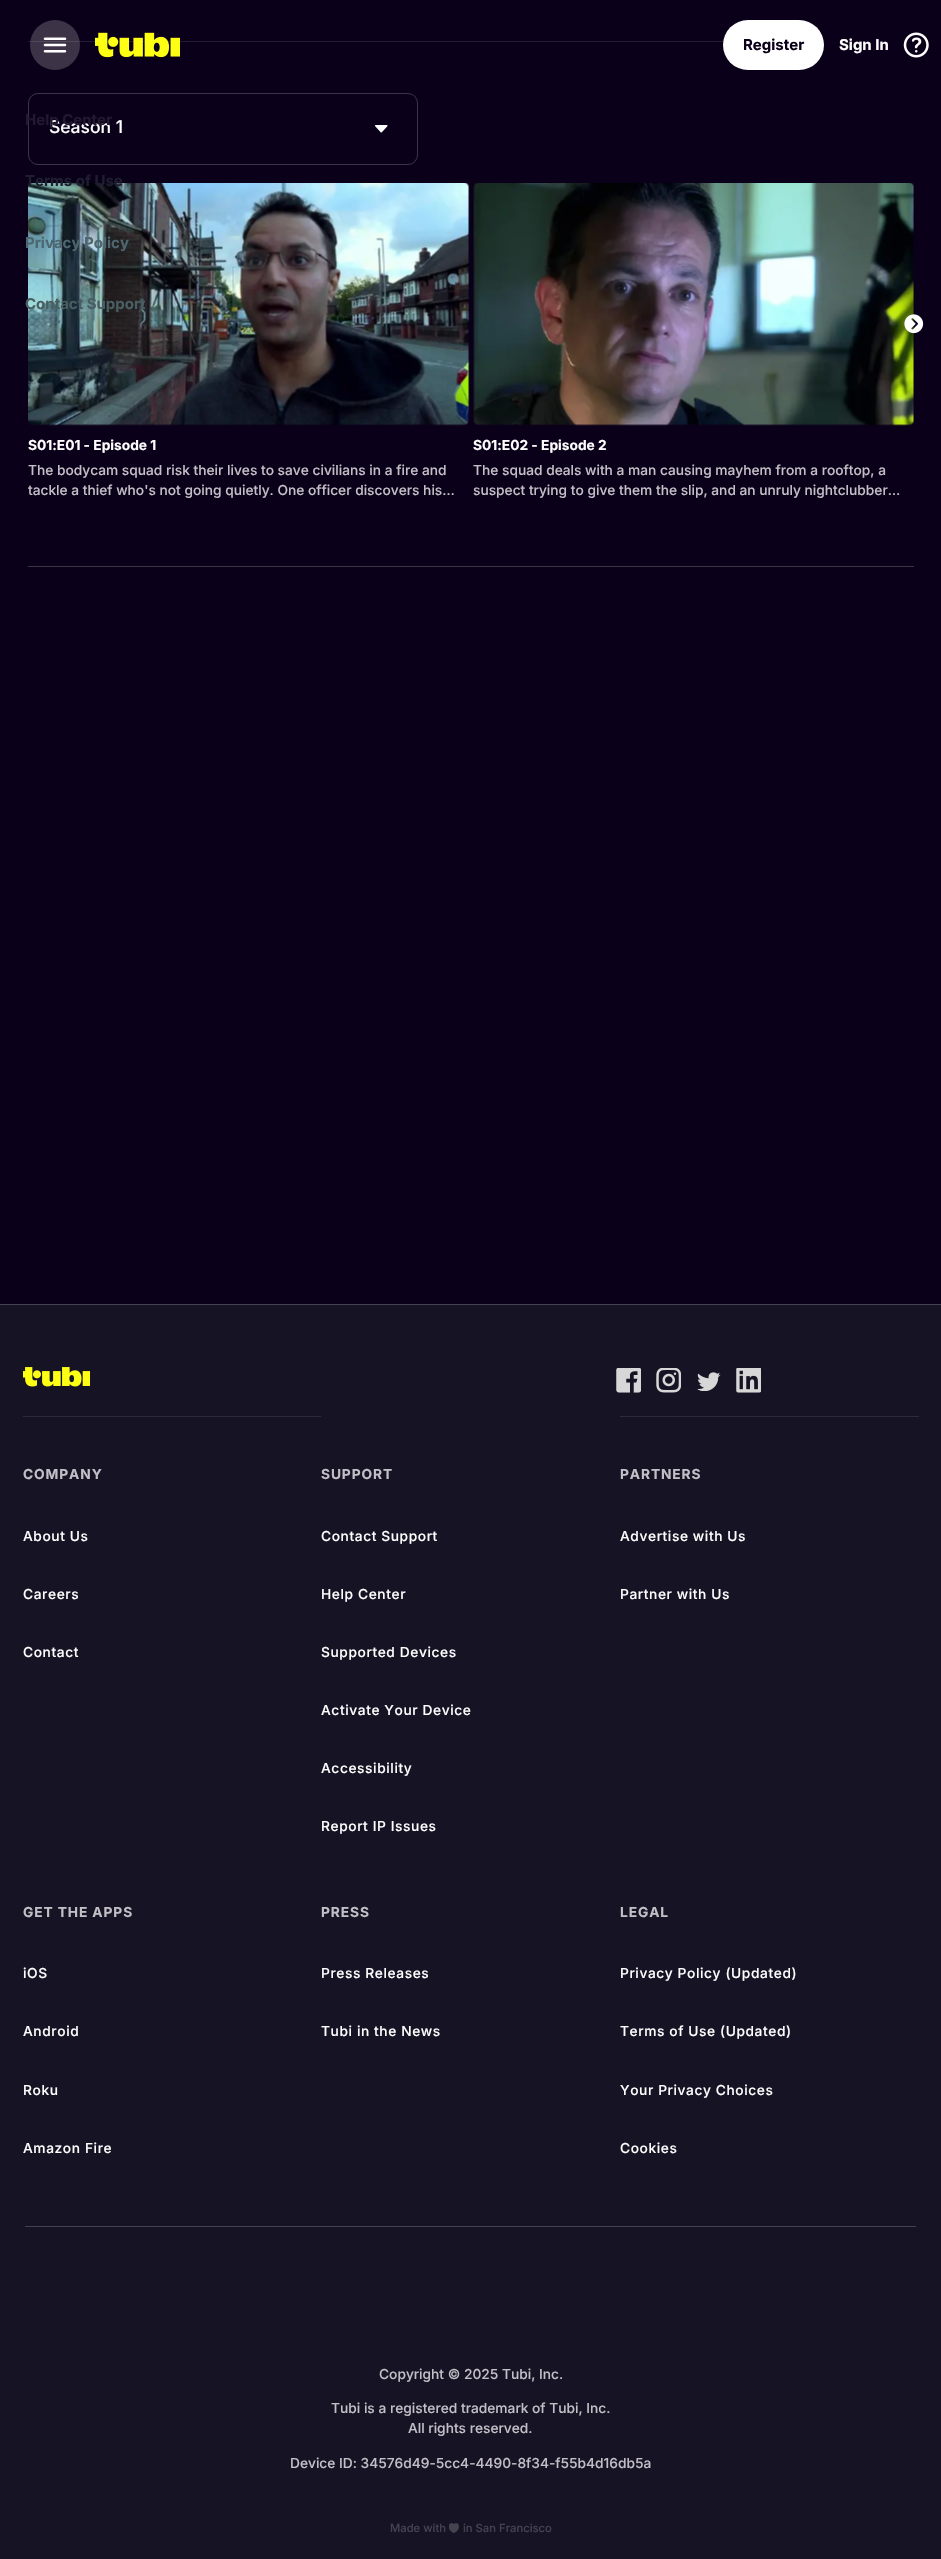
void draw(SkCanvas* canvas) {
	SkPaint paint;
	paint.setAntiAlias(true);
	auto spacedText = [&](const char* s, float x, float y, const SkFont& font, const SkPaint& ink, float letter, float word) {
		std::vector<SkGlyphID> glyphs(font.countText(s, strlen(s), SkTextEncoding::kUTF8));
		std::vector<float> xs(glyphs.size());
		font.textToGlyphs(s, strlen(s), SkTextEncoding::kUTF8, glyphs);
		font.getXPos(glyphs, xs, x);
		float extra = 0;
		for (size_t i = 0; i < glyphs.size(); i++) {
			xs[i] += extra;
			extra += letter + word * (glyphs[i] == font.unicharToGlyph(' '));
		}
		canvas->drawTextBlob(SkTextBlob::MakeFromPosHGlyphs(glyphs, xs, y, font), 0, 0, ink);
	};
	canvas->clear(0xff0b0019);
	paint.setColor(0xff3c3347);
	canvas->drawRect(SkRect::MakeXYWH(28, 41, 696, 1), paint);
	{
		const SkColor colors[] = {0xcc0b0019, 0x660b0019, 0x330b0019, 0x000b0019};
		const float stops[] = {0.01, 0.59, 0.78, 0.96};
		const SkPoint ends[] = {{471, 0}, {471, 90}};
		paint.setShader(SkGradientShader::MakeLinear(ends, colors, stops, 4, SkTileMode::kClamp));
		paint.setAlpha(255);
	}
	canvas->drawRect(SkRect::MakeXYWH(28, 41, 696, 1), paint);
	paint.setShader(nullptr);
	paint.setColor(0x33ffffff);
	canvas->drawCircle(55, 45, 25, paint);
	canvas->drawImageRect(SkImages::DeferredFromEncodedData(SkData::MakeFromFileName("img1.png")), SkRect::MakeXYWH(43, 37, 24, 16), SkSamplingOptions());
	canvas->drawImageRect(SkImages::DeferredFromEncodedData(SkData::MakeFromFileName("img2.png")), SkRect::MakeXYWH(95, 32, 85, 26), SkSamplingOptions());
	paint.setColor(0xffffffff);
	canvas->drawRoundRect(SkRect::MakeXYWH(723, 20, 101, 50), 25, 25, paint);
	SkFont f1(fontMgr->matchFamilyStyle("Inter", SkFontStyle::Bold()), 15);
	f1.setSubpixel(true);
	paint.setColor(0xff0b0019);
	canvas->drawString("Register", 743, 50, f1, paint);
	paint.setColor(0xffffffff);
	canvas->drawString("Sign In", 839, 50, f1, paint);
	canvas->drawImageRect(SkImages::DeferredFromEncodedData(SkData::MakeFromFileName("img3.png")), SkRect::MakeXYWH(903, 32, 26, 26), SkSamplingOptions());
	paint.setStroke(true);
	paint.setStrokeWidth(1);
	paint.setColor(0xff3c3347);
	canvas->drawRoundRect(SkRect::MakeXYWH(28.5, 93.5, 389, 71), 9.5, 9.5, paint);
	SkFont f2(fontMgr->matchFamilyStyle("Inter", SkFontStyle(500, SkFontStyle::kNormal_Width, SkFontStyle::kUpright_Slant)), 17.5);
	f2.setSubpixel(true);
	paint.setStroke(false);
	paint.setColor(0xffffffff);
	canvas->drawString("Season 1", 49, 133, f2, paint);
	paint.setColor(0xff22182f);
	canvas->drawString("Help Center", 25, 125, f1, paint);
	canvas->drawImageRect(SkImages::DeferredFromEncodedData(SkData::MakeFromFileName("img6.png")), SkRect::MakeXYWH(28, 183, 442, 243), SkSamplingOptions());
	paint.setColor(0xff1d1e2f);
	canvas->drawString("Terms of Use", 25, 186, f1, paint);
	paint.setColor(0xff4e6670);
	canvas->drawString("Privacy Policy", 25, 248, f1, paint);
	paint.setColor(0xff485e62);
	canvas->drawString("Contact Support", 25, 309, f1, paint);
	canvas->drawImageRect(SkImages::DeferredFromEncodedData(SkData::MakeFromFileName("img4.png")), SkRect::MakeXYWH(375, 125, 13, 8), SkSamplingOptions());
	canvas->drawImageRect(SkImages::DeferredFromEncodedData(SkData::MakeFromFileName("img7.png")), SkRect::MakeXYWH(473, 183, 441, 243), SkSamplingOptions());
	canvas->drawImageRect(SkImages::DeferredFromEncodedData(SkData::MakeFromFileName("img5.png")), SkRect::MakeXYWH(904, 314, 20, 20), SkSamplingOptions());
	SkFont f3(fontMgr->matchFamilyStyle("Inter", SkFontStyle::Bold()), 13.75);
	f3.setSubpixel(true);
	paint.setColor(0xffffffff);
	canvas->drawString("S01:E01 - Episode 1", 28, 450, f3, paint);
	SkFont f4(fontMgr->matchFamilyStyle("Inter", SkFontStyle(500, SkFontStyle::kNormal_Width, SkFontStyle::kUpright_Slant)), 13.75);
	f4.setSubpixel(true);
	paint.setColor(0xffc2bfc6);
	canvas->drawString("The bodycam squad risk their lives to save civilians in a fire and", 28, 475, f4, paint);
	canvas->drawString("tackle a thief who's not going quietly. One officer discovers his…", 28, 495, f4, paint);
	paint.setColor(0xffffffff);
	canvas->drawString("S01:E02 - Episode 2", 473, 450, f3, paint);
	paint.setColor(0xffc2bfc6);
	canvas->drawString("The squad deals with a man causing mayhem from a rooftop, a", 473, 475, f4, paint);
	canvas->drawString("suspect trying to give them the slip, and an unruly nightclubber…", 473, 495, f4, paint);
	paint.setColor(0xff3c3347);
	canvas->drawRect(SkRect::MakeXYWH(28, 566, 886, 1), paint);
	paint.setColor(0xff161324);
	canvas->drawRect(SkRect::MakeXYWH(0, 1305, 941, 1254), paint);
	paint.setColor(0xff454250);
	canvas->drawRect(SkRect::MakeXYWH(0, 1304, 941, 1), paint);
	canvas->drawImageRect(SkImages::DeferredFromEncodedData(SkData::MakeFromFileName("img8.png")), SkRect::MakeXYWH(23, 1367, 67, 20), SkSamplingOptions());
	canvas->drawImageRect(SkImages::DeferredFromEncodedData(SkData::MakeFromFileName("img9.png")), SkRect::MakeXYWH(616, 1368, 25, 25), SkSamplingOptions());
	canvas->drawImageRect(SkImages::DeferredFromEncodedData(SkData::MakeFromFileName("img10.png")), SkRect::MakeXYWH(656, 1368, 25, 25), SkSamplingOptions());
	canvas->drawImageRect(SkImages::DeferredFromEncodedData(SkData::MakeFromFileName("img11.png")), SkRect::MakeXYWH(697, 1372, 24, 19), SkSamplingOptions());
	canvas->drawImageRect(SkImages::DeferredFromEncodedData(SkData::MakeFromFileName("img12.png")), SkRect::MakeXYWH(736, 1368, 25, 25), SkSamplingOptions());
	paint.setColor(0xff2d2b3a);
	canvas->drawRect(SkRect::MakeXYWH(23, 1416, 298, 1), paint);
	canvas->drawRect(SkRect::MakeXYWH(620, 1416, 299, 1), paint);
	paint.setColor(0xffc2bfc6);
	spacedText("COMPANY", 23, 1479, f3, paint, 0.9, 0);
	paint.setColor(0xffffffff);
	spacedText("About Us", 23, 1541, f4, paint, 0.6, 0);
	spacedText("Careers", 23, 1599, f4, paint, 0.6, 0);
	spacedText("Contact", 23, 1657, f4, paint, 0.6, 0);
	paint.setColor(0xffc2bfc6);
	spacedText("SUPPORT", 321, 1479, f3, paint, 0.9, 0);
	paint.setColor(0xffffffff);
	spacedText("Contact Support", 321, 1541, f4, paint, 0.6, 0);
	spacedText("Help Center", 321, 1599, f4, paint, 0.6, 0);
	spacedText("Supported Devices", 321, 1657, f4, paint, 0.6, 0);
	spacedText("Activate Your Device", 321, 1715, f4, paint, 0.6, 0);
	spacedText("Accessibility", 321, 1773, f4, paint, 0.6, 0);
	spacedText("Report IP Issues", 321, 1831, f4, paint, 0.6, 0);
	paint.setColor(0xffc2bfc6);
	spacedText("PARTNERS", 620, 1479, f3, paint, 0.9, 0);
	paint.setColor(0xffffffff);
	spacedText("Advertise with Us", 620, 1541, f4, paint, 0.6, 0);
	spacedText("Partner with Us", 620, 1599, f4, paint, 0.6, 0);
	paint.setColor(0xffc2bfc6);
	spacedText("GET THE APPS", 23, 1917, f3, paint, 0.9, 0);
	paint.setColor(0xffffffff);
	spacedText("iOS", 23, 1978, f4, paint, 0.6, 0);
	spacedText("Android", 23, 2036, f4, paint, 0.6, 0);
	spacedText("Roku", 23, 2095, f4, paint, 0.6, 0);
	spacedText("Amazon Fire", 23, 2153, f4, paint, 0.6, 0);
	paint.setColor(0xffc2bfc6);
	spacedText("PRESS", 321, 1917, f3, paint, 0.9, 0);
	paint.setColor(0xffffffff);
	spacedText("Press Releases", 321, 1978, f4, paint, 0.6, 0);
	spacedText("Tubi in the News", 321, 2036, f4, paint, 0.6, 0);
	paint.setColor(0xffc2bfc6);
	spacedText("LEGAL", 620, 1917, f3, paint, 0.9, 0);
	paint.setColor(0xffffffff);
	spacedText("Privacy Policy (Updated)", 620, 1978, f4, paint, 0.6, 0);
	spacedText("Terms of Use (Updated)", 620, 2036, f4, paint, 0.6, 0);
	spacedText("Your Privacy Choices", 620, 2095, f4, paint, 0.6, 0);
	spacedText("Cookies", 620, 2153, f4, paint, 0.6, 0);
	paint.setColor(0xff454250);
	canvas->drawRect(SkRect::MakeXYWH(25, 2226, 891, 1), paint);
	paint.setColor(0xffc2bfc6);
	canvas->drawString("Copyright © 2025 Tubi, Inc.", 379, 2379, f4, paint);
	canvas->drawString("Tubi is a registered trademark of Tubi, Inc.", 331, 2413, f4, paint);
	canvas->drawString("All rights reserved.", 408, 2433, f4, paint);
	canvas->drawString("Device ID: 34576d49-5cc4-4490-8f34-f55b4d16db5a", 290, 2468, f4, paint);
	SkFont f5(fontMgr->matchFamilyStyle("Inter", SkFontStyle(500, SkFontStyle::kNormal_Width, SkFontStyle::kUpright_Slant)), 11.25);
	f5.setSubpixel(true);
	paint.setColor(0xff454250);
	canvas->drawString("Made with", 390, 2532, f5, paint);
	canvas->drawImageRect(SkImages::DeferredFromEncodedData(SkData::MakeFromFileName("img13.png")), SkRect::MakeXYWH(449, 2523, 10, 10), SkSamplingOptions());
	canvas->drawString("in San Francisco", 463, 2532, f5, paint);
}
